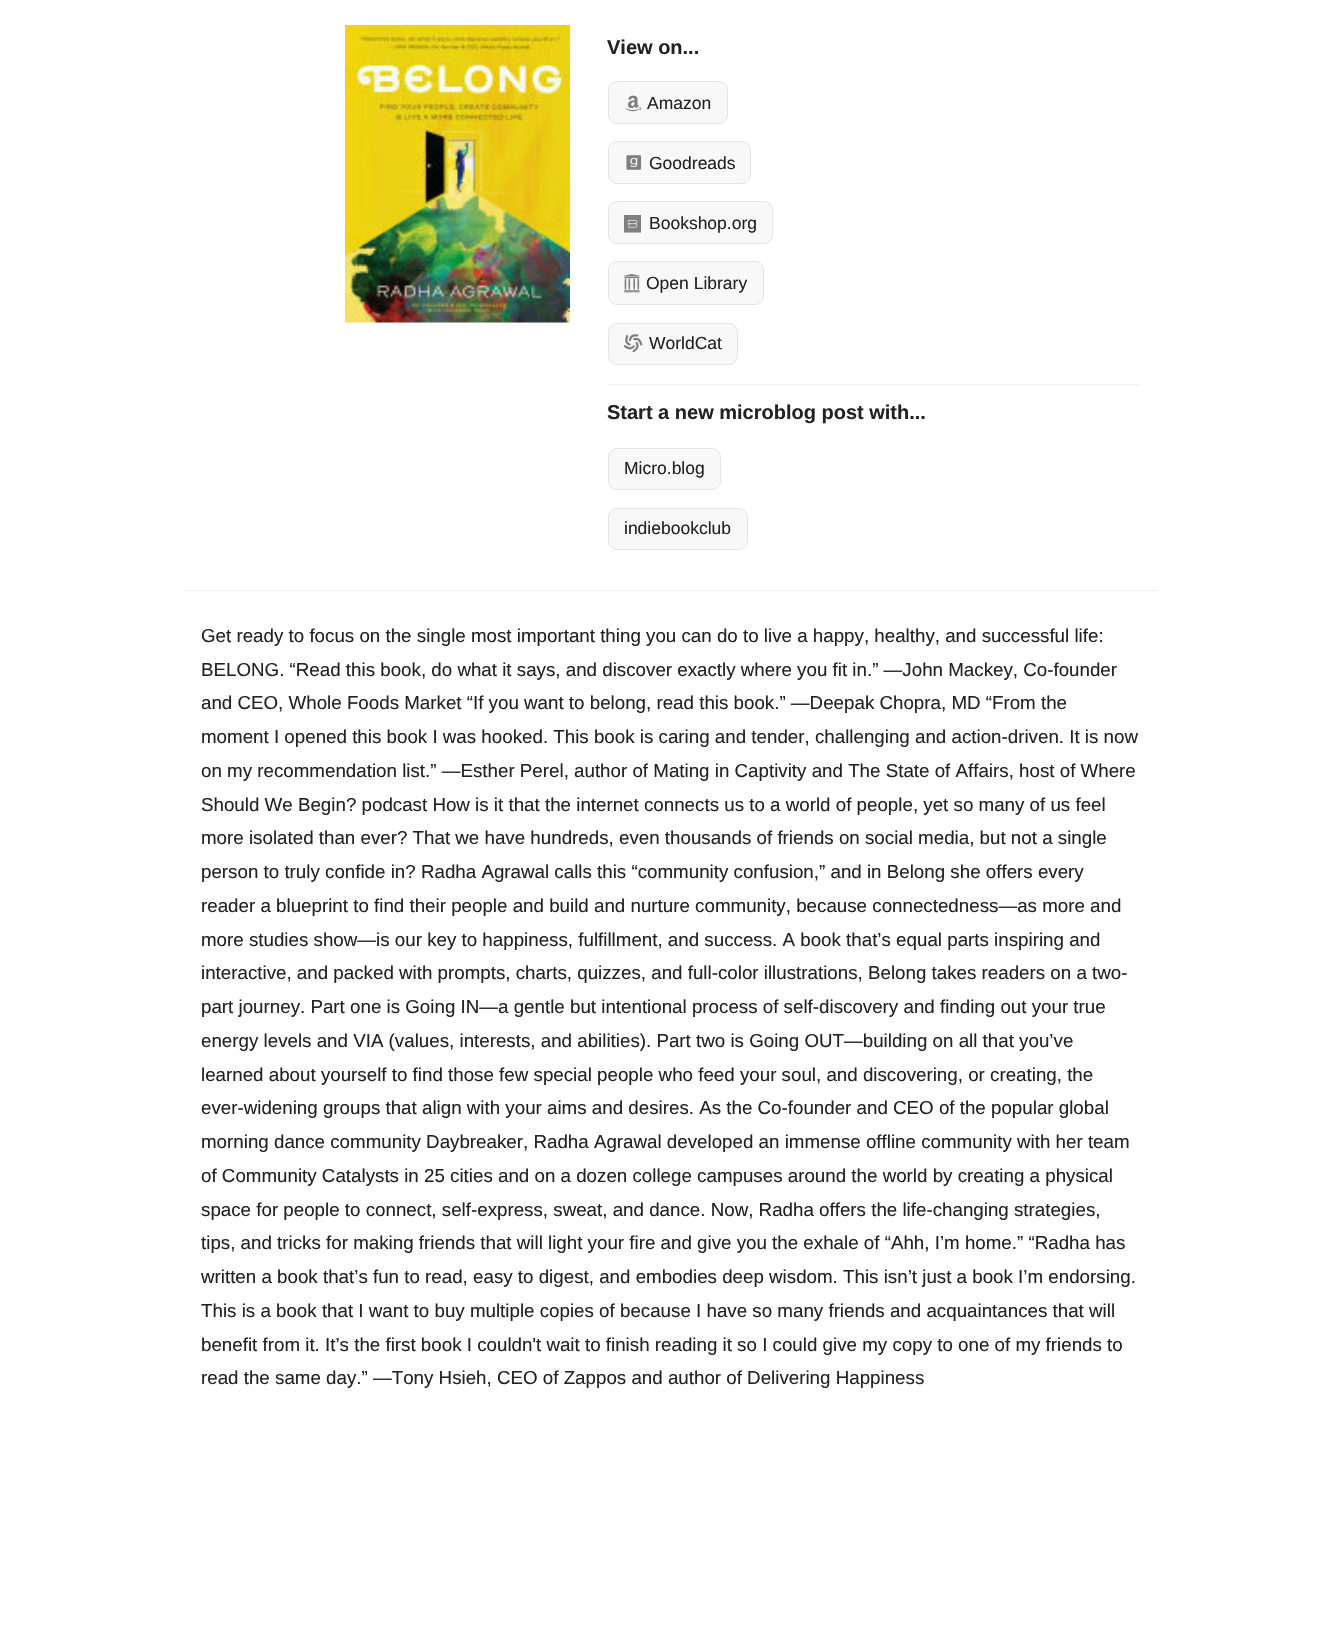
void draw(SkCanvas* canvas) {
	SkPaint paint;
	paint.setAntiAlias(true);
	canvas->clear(0xffffffff);
	canvas->drawImageRect(SkImages::DeferredFromEncodedData(SkData::MakeFromFileName("img1.png")), SkRect::MakeXYWH(345, 25, 225, 298), SkSamplingOptions());
	SkFont f1(fontMgr->matchFamilyStyle("Liberation Sans", SkFontStyle::Bold()), 20);
	f1.setSubpixel(true);
	paint.setColor(0xff222222);
	canvas->drawString("View on...", 607, 54, f1, paint);
	paint.setColor(0xfff8f8f8);
	canvas->drawRoundRect(SkRect::MakeXYWH(608.5, 81.5, 119, 42), 8.5, 8.5, paint);
	paint.setStroke(true);
	paint.setStrokeWidth(1);
	paint.setColor(0xffe5e5e5);
	canvas->drawRoundRect(SkRect::MakeXYWH(608.5, 81.5, 119, 42), 8.5, 8.5, paint);
	canvas->drawImageRect(SkImages::DeferredFromEncodedData(SkData::MakeFromFileName("img2.png")), SkRect::MakeXYWH(625, 95, 17, 17), SkSamplingOptions());
	SkFont f2(fontMgr->matchFamilyStyle("Liberation Sans", SkFontStyle::Normal()), 17.5);
	f2.setSubpixel(true);
	paint.setStroke(false);
	paint.setColor(0xff222222);
	canvas->drawString("Amazon", 647, 109, f2, paint);
	paint.setColor(0xfff8f8f8);
	canvas->drawRoundRect(SkRect::MakeXYWH(608.5, 141.5, 142, 42), 8.5, 8.5, paint);
	paint.setStroke(true);
	paint.setColor(0xffe5e5e5);
	canvas->drawRoundRect(SkRect::MakeXYWH(608.5, 141.5, 142, 42), 8.5, 8.5, paint);
	canvas->drawImageRect(SkImages::DeferredFromEncodedData(SkData::MakeFromFileName("img3.png")), SkRect::MakeXYWH(626, 155, 16, 15), SkSamplingOptions());
	paint.setStroke(false);
	paint.setColor(0xff222222);
	canvas->drawString("Goodreads", 649, 169, f2, paint);
	paint.setColor(0xfff8f8f8);
	canvas->drawRoundRect(SkRect::MakeXYWH(608.5, 201.5, 164, 42), 8.5, 8.5, paint);
	paint.setStroke(true);
	paint.setColor(0xffe5e5e5);
	canvas->drawRoundRect(SkRect::MakeXYWH(608.5, 201.5, 164, 42), 8.5, 8.5, paint);
	canvas->drawImageRect(SkImages::DeferredFromEncodedData(SkData::MakeFromFileName("img4.png")), SkRect::MakeXYWH(624, 215, 17, 18), SkSamplingOptions());
	paint.setStroke(false);
	paint.setColor(0xff222222);
	canvas->drawString("Bookshop.org", 649, 229, f2, paint);
	paint.setColor(0xfff8f8f8);
	canvas->drawRoundRect(SkRect::MakeXYWH(608.5, 261.5, 155, 43), 8.5, 8.5, paint);
	paint.setStroke(true);
	paint.setColor(0xffe5e5e5);
	canvas->drawRoundRect(SkRect::MakeXYWH(608.5, 261.5, 155, 43), 8.5, 8.5, paint);
	canvas->drawImageRect(SkImages::DeferredFromEncodedData(SkData::MakeFromFileName("img5.png")), SkRect::MakeXYWH(624, 274, 16, 19), SkSamplingOptions());
	paint.setStroke(false);
	paint.setColor(0xff222222);
	canvas->drawString("Open Library", 646, 289, f2, paint);
	paint.setColor(0xfff8f8f8);
	canvas->drawRoundRect(SkRect::MakeXYWH(608.5, 323.5, 129, 41), 8.5, 8.5, paint);
	paint.setStroke(true);
	paint.setColor(0xffe5e5e5);
	canvas->drawRoundRect(SkRect::MakeXYWH(608.5, 323.5, 129, 41), 8.5, 8.5, paint);
	canvas->drawImageRect(SkImages::DeferredFromEncodedData(SkData::MakeFromFileName("img6.png")), SkRect::MakeXYWH(624, 334, 19, 19), SkSamplingOptions());
	paint.setStroke(false);
	paint.setColor(0xff222222);
	canvas->drawString("WorldCat", 649, 349, f2, paint);
	paint.setColor(0xffefefef);
	canvas->drawRect(SkRect::MakeXYWH(608, 384, 531, 1), paint);
	paint.setColor(0xff222222);
	canvas->drawString("Start a new microblog post with...", 607, 419, f1, paint);
	paint.setColor(0xfff8f8f8);
	canvas->drawRoundRect(SkRect::MakeXYWH(608.5, 448.5, 112, 41), 8.5, 8.5, paint);
	paint.setStroke(true);
	paint.setColor(0xffe5e5e5);
	canvas->drawRoundRect(SkRect::MakeXYWH(608.5, 448.5, 112, 41), 8.5, 8.5, paint);
	paint.setStroke(false);
	paint.setColor(0xff222222);
	canvas->drawString("Micro.blog", 624, 474, f2, paint);
	paint.setColor(0xfff8f8f8);
	canvas->drawRoundRect(SkRect::MakeXYWH(608.5, 508.5, 139, 41), 8.5, 8.5, paint);
	paint.setStroke(true);
	paint.setColor(0xffe5e5e5);
	canvas->drawRoundRect(SkRect::MakeXYWH(608.5, 508.5, 139, 41), 8.5, 8.5, paint);
	paint.setStroke(false);
	paint.setColor(0xff222222);
	canvas->drawString("indiebookclub", 624, 534, f2, paint);
	paint.setColor(0xffefefef);
	canvas->drawRect(SkRect::MakeXYWH(183, 590, 975, 1), paint);
	SkFont f3(fontMgr->matchFamilyStyle("Liberation Sans", SkFontStyle::Normal()), 18.75);
	f3.setSubpixel(true);
	paint.setColor(0xff222222);
	canvas->drawString("Get ready to focus on the single most important thing you can do to live a happy, healthy, and successful life:", 201, 642, f3, paint);
	canvas->drawString("BELONG. “Read this book, do what it says, and discover exactly where you fit in.” —John Mackey, Co-founder", 201, 676, f3, paint);
	canvas->drawString("and CEO, Whole Foods Market “If you want to belong, read this book.” —Deepak Chopra, MD “From the", 201, 709, f3, paint);
	canvas->drawString("moment I opened this book I was hooked. This book is caring and tender, challenging and action-driven. It is now", 201, 743, f3, paint);
	canvas->drawString("on my recommendation list.” —Esther Perel, author of Mating in Captivity and The State of Affairs, host of Where", 201, 777, f3, paint);
	canvas->drawString("Should We Begin? podcast How is it that the internet connects us to a world of people, yet so many of us feel", 201, 811, f3, paint);
	canvas->drawString("more isolated than ever? That we have hundreds, even thousands of friends on social media, but not a single", 201, 844, f3, paint);
	canvas->drawString("person to truly confide in? Radha Agrawal calls this “community confusion,” and in Belong she offers every", 201, 878, f3, paint);
	canvas->drawString("reader a blueprint to find their people and build and nurture community, because connectedness—as more and", 201, 912, f3, paint);
	canvas->drawString("more studies show—is our key to happiness, fulfillment, and success. A book that’s equal parts inspiring and", 201, 946, f3, paint);
	canvas->drawString("interactive, and packed with prompts, charts, quizzes, and full-color illustrations, Belong takes readers on a two-", 201, 979, f3, paint);
	canvas->drawString("part journey. Part one is Going IN—a gentle but intentional process of self-discovery and finding out your true", 201, 1013, f3, paint);
	canvas->drawString("energy levels and VIA (values, interests, and abilities). Part two is Going OUT—building on all that you’ve", 201, 1047, f3, paint);
	canvas->drawString("learned about yourself to find those few special people who feed your soul, and discovering, or creating, the", 201, 1081, f3, paint);
	canvas->drawString("ever-widening groups that align with your aims and desires. As the Co-founder and CEO of the popular global", 201, 1114, f3, paint);
	canvas->drawString("morning dance community Daybreaker, Radha Agrawal developed an immense offline community with her team", 201, 1148, f3, paint);
	canvas->drawString("of Community Catalysts in 25 cities and on a dozen college campuses around the world by creating a physical", 201, 1182, f3, paint);
	canvas->drawString("space for people to connect, self-express, sweat, and dance. Now, Radha offers the life-changing strategies,", 201, 1216, f3, paint);
	canvas->drawString("tips, and tricks for making friends that will light your fire and give you the exhale of “Ahh, I’m home.” “Radha has", 201, 1249, f3, paint);
	canvas->drawString("written a book that’s fun to read, easy to digest, and embodies deep wisdom. This isn’t just a book I’m endorsing.", 201, 1283, f3, paint);
	canvas->drawString("This is a book that I want to buy multiple copies of because I have so many friends and acquaintances that will", 201, 1317, f3, paint);
	canvas->drawString("benefit from it. It’s the first book I couldn't wait to finish reading it so I could give my copy to one of my friends to", 201, 1351, f3, paint);
	canvas->drawString("read the same day.” —Tony Hsieh, CEO of Zappos and author of Delivering Happiness", 201, 1384, f3, paint);
}
